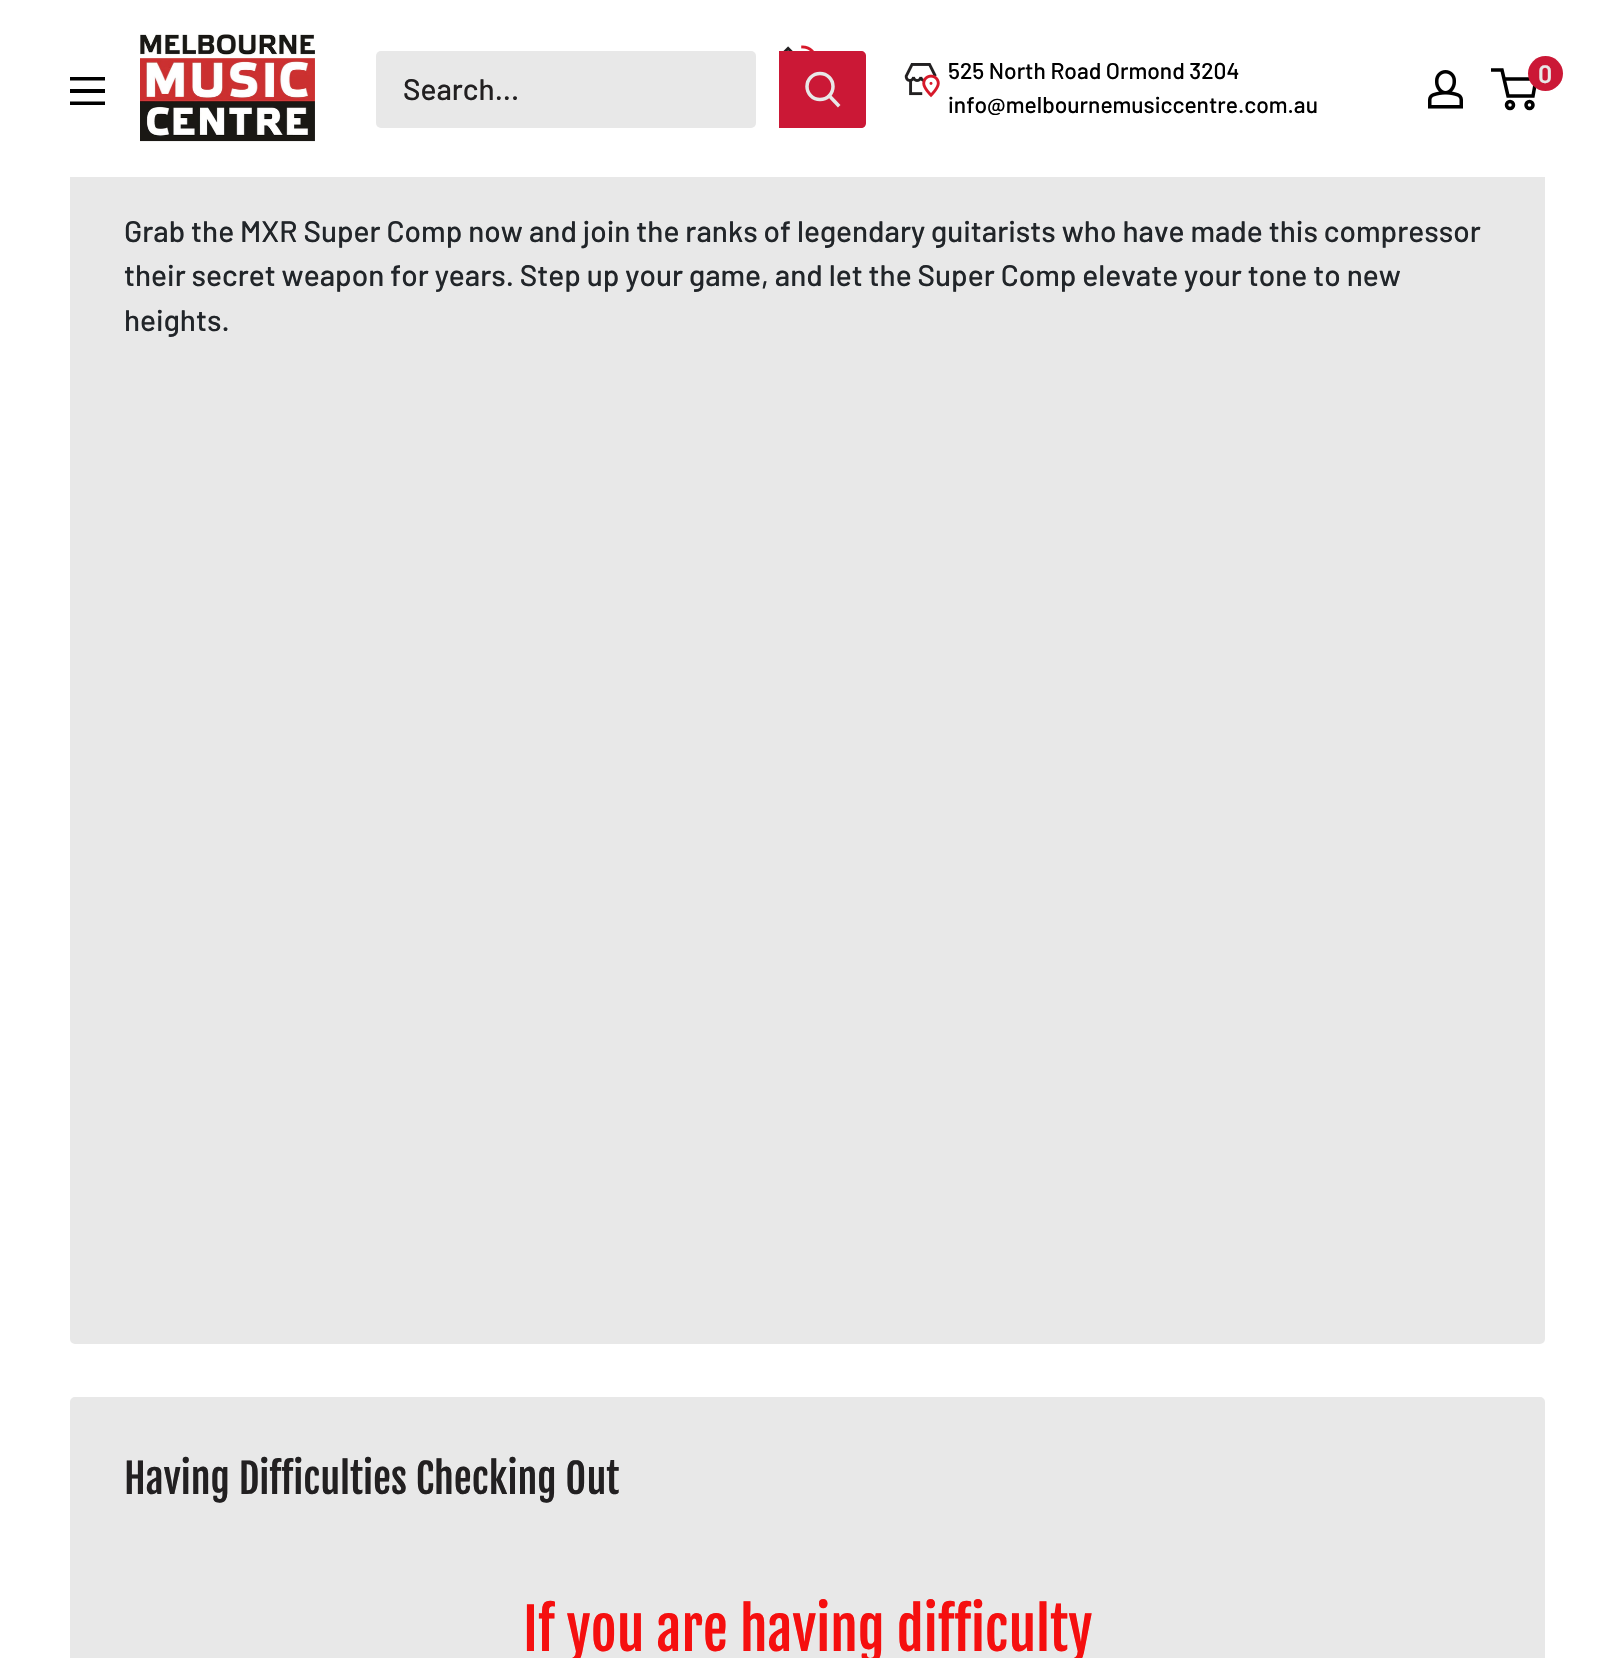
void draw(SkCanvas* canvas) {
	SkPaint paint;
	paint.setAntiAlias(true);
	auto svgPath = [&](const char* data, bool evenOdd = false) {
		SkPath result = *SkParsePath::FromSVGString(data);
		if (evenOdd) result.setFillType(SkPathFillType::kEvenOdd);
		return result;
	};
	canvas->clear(0xffffffff);
	paint.setColor(0xffe8e8e8);
	canvas->drawRoundRect(SkRect::MakeXYWH(71, -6, 1473, 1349), 4, 4, paint);
	paint.setStroke(true);
	paint.setStrokeWidth(2);
	canvas->drawRoundRect(SkRect::MakeXYWH(71, -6, 1473, 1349), 4, 4, paint);
	paint.setStroke(false);
	paint.setColor(0xffffffff);
	canvas->drawRect(SkRect::MakeXYWH(70, 0, 1475, 177), paint);
	canvas->drawImageRect(SkImages::DeferredFromEncodedData(SkData::MakeFromFileName("img1.png")), SkRect::MakeXYWH(140, 34, 175, 108), SkSamplingOptions());
	canvas->drawImageRect(SkImages::DeferredFromEncodedData(SkData::MakeFromFileName("img2.png")), SkRect::MakeXYWH(783, 45, 31, 6), SkSamplingOptions());
	paint.setColor(0xffe8e8e8);
	canvas->drawRoundRect(SkRect::MakeXYWH(376, 51, 380, 77), 5, 5, paint);
	SkFont f1(fontMgr->matchFamilyStyle("Barlow", SkFontStyle(500, SkFontStyle::kNormal_Width, SkFontStyle::kUpright_Slant)), 29.75);
	f1.setSubpixel(true);
	paint.setColor(0xff222021);
	canvas->drawString("Search...", 403, 100, f1, paint);
	paint.setColor(0xffcb1836);
	canvas->drawPath(svgPath("M779 51H861C864 51 866 53 866 56V123C866 126 864 128 861 128H779Z"), paint);
	paint.setStroke(true);
	paint.setStrokeWidth(3.5);
	paint.setStrokeCap(SkPaint::kSquare_Cap);
	paint.setColor(0xffe8e8e8);
	canvas->drawPath(svgPath("M838 105L829.5 96"), paint);
	paint.setStrokeCap(SkPaint::kButt_Cap);
	canvas->drawCircle(820, 86.5, 13, paint);
	canvas->drawImageRect(SkImages::DeferredFromEncodedData(SkData::MakeFromFileName("img3.png")), SkRect::MakeXYWH(904, 63, 36, 35), SkSamplingOptions());
	SkFont f2(fontMgr->matchFamilyStyle("Barlow", SkFontStyle(500, SkFontStyle::kNormal_Width, SkFontStyle::kUpright_Slant)), 22.75);
	f2.setSubpixel(true);
	paint.setStroke(false);
	paint.setColor(0xff000000);
	canvas->drawString("525 North Road Ormond 3204", 948, 79, f2, paint);
	canvas->drawString("info@melbournemusiccentre.com.au", 948, 113, f2, paint);
	canvas->drawImageRect(SkImages::DeferredFromEncodedData(SkData::MakeFromFileName("img4.png")), SkRect::MakeXYWH(1428, 70, 35, 39), SkSamplingOptions());
	paint.setStroke(true);
	canvas->drawCircle(1510, 105, 3.5, paint);
	canvas->drawCircle(1529.5, 105, 3.5, paint);
	canvas->drawPath(svgPath("M1504 79H1536L1533 96H1508L1502 70H1491"), paint);
	paint.setStroke(false);
	paint.setColor(0xffcb1836);
	canvas->drawCircle(1545.5, 73.5, 17.5, paint);
	SkFont f3(fontMgr->matchFamilyStyle("Barlow", SkFontStyle(600, SkFontStyle::kNormal_Width, SkFontStyle::kUpright_Slant)), 25);
	f3.setSubpixel(true);
	paint.setColor(0xffe8e8e8);
	canvas->drawString("0", 1538, 83, f3, paint);
	paint.setColor(0xff000000);
	canvas->drawPath(svgPath("M70 101.5H105V105H70ZM70 77H105V80.5H70ZM70 89H105V93H70Z", true), paint);
	paint.setColor(0xff212529);
	canvas->drawString("Grab the MXR Super Comp now and join the ranks of legendary guitarists who have made this compressor", 124, 242, f1, paint);
	canvas->drawString("their secret weapon for years. Step up your game, and let the Super Comp elevate your tone to new", 124, 286, f1, paint);
	canvas->drawString("heights.", 124, 331, f1, paint);
	paint.setColor(0xffe8e8e8);
	canvas->drawRoundRect(SkRect::MakeXYWH(71, 1398, 1473, 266), 4, 4, paint);
	paint.setStroke(true);
	paint.setStrokeWidth(2);
	canvas->drawRoundRect(SkRect::MakeXYWH(71, 1398, 1473, 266), 4, 4, paint);
	SkFont f4(fontMgr->matchFamilyStyle("Fjalla One", SkFontStyle::Normal()), 40.25);
	f4.setSubpixel(true);
	paint.setStroke(false);
	paint.setColor(0xff222021);
	canvas->drawString("Having Difficulties Checking Out", 124, 1494, f4, paint);
	SkFont f5(fontMgr->matchFamilyStyle("Fjalla One", SkFontStyle::Normal()), 56);
	f5.setSubpixel(true);
	paint.setColor(0xfff50f0f);
	canvas->drawString("If you are having difficulty", 523, 1651, f5, paint);
}
